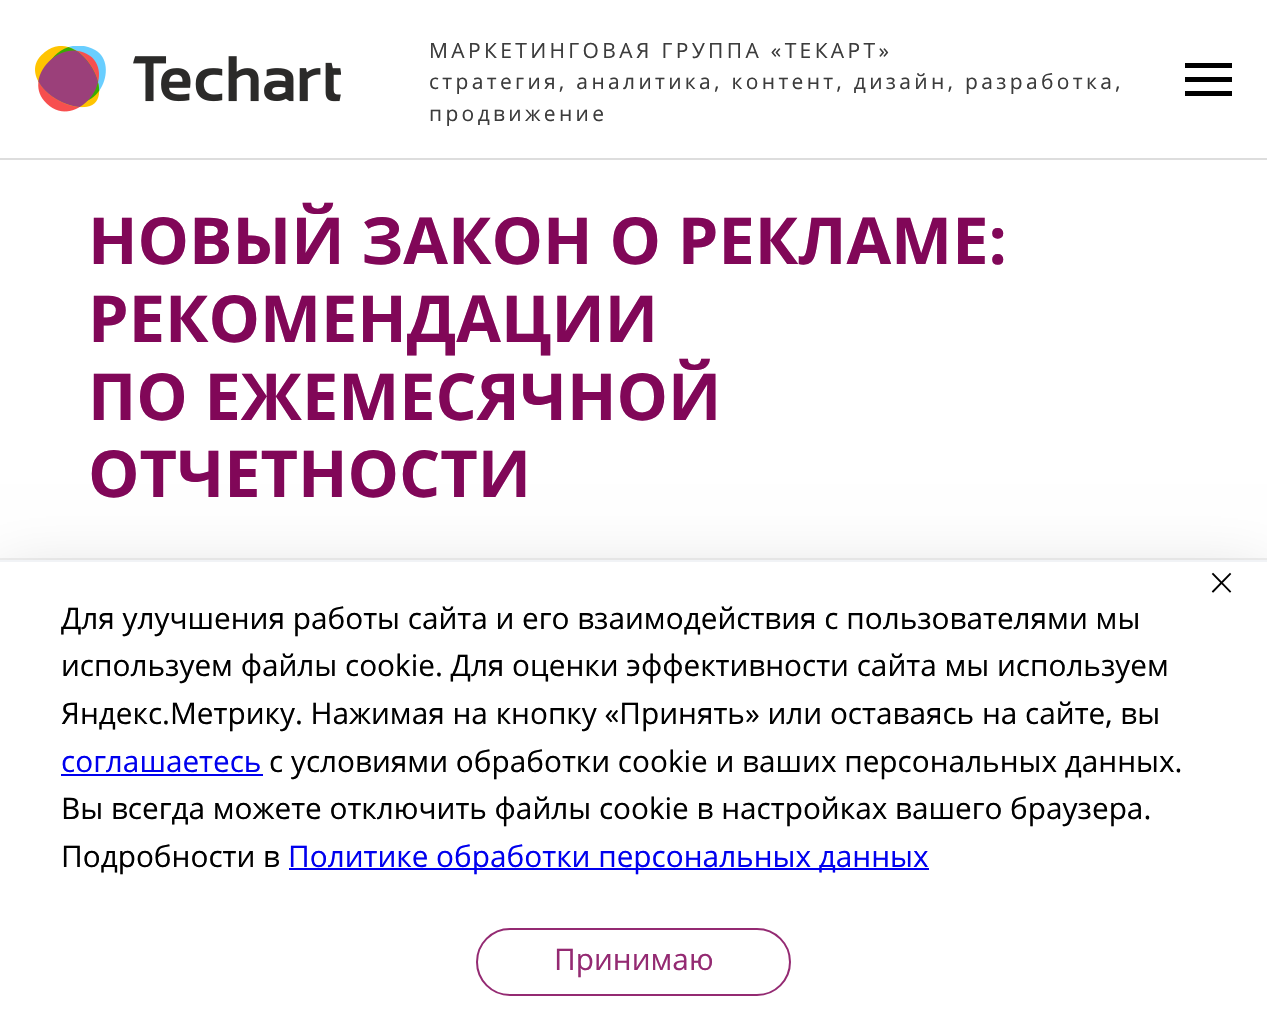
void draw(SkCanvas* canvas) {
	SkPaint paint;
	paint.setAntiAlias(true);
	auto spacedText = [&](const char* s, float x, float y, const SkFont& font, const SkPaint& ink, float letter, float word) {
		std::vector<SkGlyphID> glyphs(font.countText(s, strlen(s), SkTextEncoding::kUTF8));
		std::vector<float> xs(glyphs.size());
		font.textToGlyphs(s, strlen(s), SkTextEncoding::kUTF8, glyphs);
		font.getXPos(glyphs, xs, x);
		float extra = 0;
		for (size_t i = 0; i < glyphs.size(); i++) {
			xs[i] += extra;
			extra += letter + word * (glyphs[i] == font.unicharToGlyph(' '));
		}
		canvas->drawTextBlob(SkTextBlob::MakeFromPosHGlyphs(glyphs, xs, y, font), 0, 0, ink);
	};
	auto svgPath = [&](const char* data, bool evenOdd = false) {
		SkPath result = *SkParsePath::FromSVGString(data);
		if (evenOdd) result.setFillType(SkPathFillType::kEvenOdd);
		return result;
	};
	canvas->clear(0xffffffff);
	paint.setColor(0xffdddddd);
	canvas->drawRect(SkRect::MakeXYWH(0, 158, 1267, 2), paint);
	canvas->drawImageRect(SkImages::DeferredFromEncodedData(SkData::MakeFromFileName("img1.png")), SkRect::MakeXYWH(35, 46, 306, 66), SkSamplingOptions());
	SkFont f1(fontMgr->matchFamilyStyle("Open Sans", SkFontStyle::Normal()), 21);
	f1.setSubpixel(true);
	paint.setColor(0xff3c3c3c);
	spacedText("МАРКЕТИНГОВАЯ ГРУППА «ТЕКАРТ»", 429, 58, f1, paint, 3.35, 0);
	spacedText("стратегия, аналитика, контент, дизайн, разработка,", 429, 89, f1, paint, 3.35, 0);
	spacedText("продвижение", 429, 121, f1, paint, 3.35, 0);
	paint.setColor(0xff000000);
	canvas->drawRect(SkRect::MakeXYWH(1185, 63, 47, 5), paint);
	canvas->drawRect(SkRect::MakeXYWH(1185, 77, 47, 5), paint);
	canvas->drawRect(SkRect::MakeXYWH(1185, 91, 47, 5), paint);
	SkFont f2(fontMgr->matchFamilyStyle("Open Sans", SkFontStyle::Bold()), 64.75);
	f2.setSubpixel(true);
	paint.setColor(0xff810758);
	canvas->drawString("НОВЫЙ ЗАКОН О РЕКЛАМЕ:", 88, 264, f2, paint);
	canvas->drawString("РЕКОМЕНДАЦИИ", 88, 342, f2, paint);
	canvas->drawString("ПО ЕЖЕМЕСЯЧНОЙ", 88, 420, f2, paint);
	canvas->drawString("ОТЧЕТНОСТИ", 88, 497, f2, paint);
	paint.setStroke(true);
	paint.setStrokeWidth(2);
	paint.setColor(0xfff0f0f0);
	canvas->drawRect(SkRect::MakeXYWH(-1, 559, 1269, 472), paint);
	paint.setStroke(false);
	paint.setColor(0x29000000);
	paint.setMaskFilter(SkMaskFilter::MakeBlur(kNormal_SkBlurStyle, 31.5));
	canvas->drawRect(SkRect::MakeXYWH(0, 578, 1267, 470), paint);
	paint.setMaskFilter(nullptr);
	paint.setColor(0xffffffff);
	canvas->drawRect(SkRect::MakeXYWH(0, 562, 1267, 468), paint);
	paint.setColor(0xfff1f3f6);
	canvas->drawRect(SkRect::MakeXYWH(0, 560, 1267, 2), paint);
	paint.setStroke(true);
	paint.setStrokeWidth(1.8);
	paint.setStrokeCap(SkPaint::kSquare_Cap);
	paint.setStrokeJoin(SkPaint::kRound_Join);
	paint.setColor(0xff000000);
	canvas->drawPath(svgPath("M1230 574L1213 591.5M1213 574L1230 591.5"), paint);
	SkFont f3(fontMgr->matchFamilyStyle("Open Sans", SkFontStyle::Normal()), 29.75);
	f3.setSubpixel(true);
	paint.setStroke(false);
	canvas->drawString("Для улучшения работы сайта и его взаимодействия с пользователями мы", 61, 629, f3, paint);
	canvas->drawString("используем файлы cookie. Для оценки эффективности сайта мы используем", 61, 676, f3, paint);
	canvas->drawString("Яндекс.Метрику. Нажимая на кнопку «Принять» или оставаясь на сайте, вы", 61, 724, f3, paint);
	paint.setColor(0xff0000ee);
	canvas->drawString("соглашаетесь", 61, 772, f3, paint);
	canvas->drawRect(SkRect::MakeXYWH(61, 774, 202, 2), paint);
	paint.setColor(0xff000000);
	canvas->drawString("с условиями обработки cookie и ваших персональных данных.", 269, 772, f3, paint);
	canvas->drawString("Вы всегда можете отключить файлы cookie в настройках вашего браузера.", 61, 819, f3, paint);
	canvas->drawString("Подробности в", 61, 867, f3, paint);
	paint.setColor(0xff0000ee);
	canvas->drawRect(SkRect::MakeXYWH(289, 868, 640, 2), paint);
	canvas->drawString("Политике обработки персональных данных", 288, 867, f3, paint);
	paint.setStroke(true);
	paint.setStrokeWidth(2);
	paint.setStrokeCap(SkPaint::kButt_Cap);
	paint.setStrokeJoin(SkPaint::kMiter_Join);
	paint.setColor(0xff942a72);
	canvas->drawRoundRect(SkRect::MakeXYWH(477, 929, 313, 66), 33, 33, paint);
	paint.setStroke(false);
	canvas->drawString("Принимаю", 554, 970, f3, paint);
}
